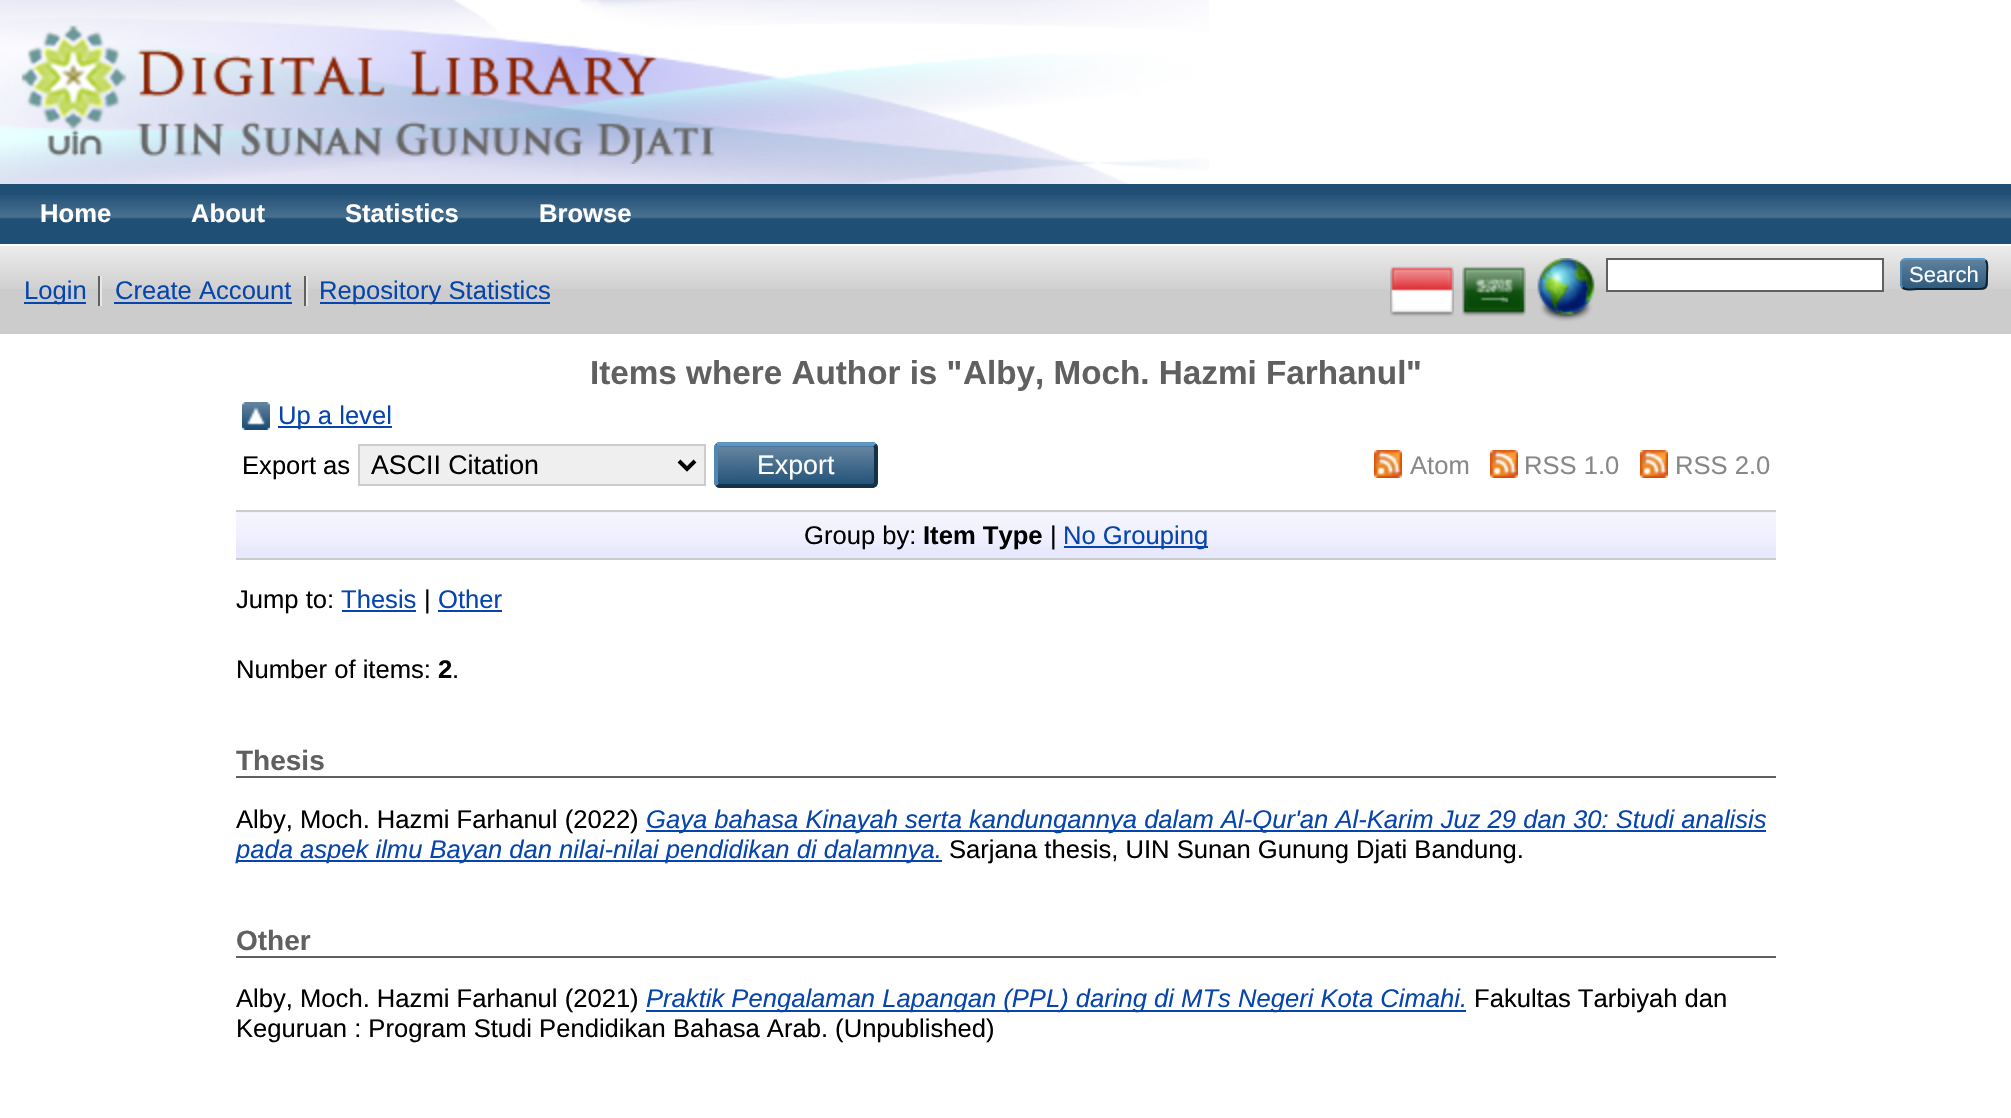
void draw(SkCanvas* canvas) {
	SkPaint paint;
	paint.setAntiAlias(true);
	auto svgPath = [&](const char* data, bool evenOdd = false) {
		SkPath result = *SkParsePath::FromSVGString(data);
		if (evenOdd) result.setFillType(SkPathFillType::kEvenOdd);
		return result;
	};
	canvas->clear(0xffffffff);
	canvas->drawImageRect(SkImages::DeferredFromEncodedData(SkData::MakeFromFileName("img1.png")), SkRect::MakeXYWH(0, 0, 1209, 184), SkSamplingOptions());
	canvas->drawImageRect(SkImages::DeferredFromEncodedData(SkData::MakeFromFileName("img2.png")), SkRect::MakeXYWH(21, 25, 694, 139), SkSamplingOptions());
	paint.setColor(0xff204f76);
	canvas->drawRect(SkRect::MakeXYWH(0, 184, 2011, 60), paint);
	canvas->drawImageRect(SkImages::DeferredFromEncodedData(SkData::MakeFromFileName("img3.png")), SkRect::MakeXYWH(0, 195, 2011, 24), SkSamplingOptions());
	SkFont f1(fontMgr->matchFamilyStyle("Liberation Sans", SkFontStyle::Bold()), 25.6);
	f1.setSubpixel(true);
	paint.setColor(0xffffffff);
	canvas->drawString("Home", 40, 222, f1, paint);
	canvas->drawString("About", 191, 222, f1, paint);
	canvas->drawString("Statistics", 345, 222, f1, paint);
	canvas->drawString("Browse", 539, 222, f1, paint);
	paint.setColor(0xffcccccc);
	canvas->drawRect(SkRect::MakeXYWH(0, 246, 2011, 88), paint);
	canvas->drawImageRect(SkImages::DeferredFromEncodedData(SkData::MakeFromFileName("img4.png")), SkRect::MakeXYWH(0, 246, 2011, 43), SkSamplingOptions());
	canvas->drawImageRect(SkImages::DeferredFromEncodedData(SkData::MakeFromFileName("img5.png")), SkRect::MakeXYWH(1390, 266, 64, 51), SkSamplingOptions());
	canvas->drawImageRect(SkImages::DeferredFromEncodedData(SkData::MakeFromFileName("img6.png")), SkRect::MakeXYWH(1462, 266, 64, 51), SkSamplingOptions());
	canvas->drawImageRect(SkImages::DeferredFromEncodedData(SkData::MakeFromFileName("img7.png")), SkRect::MakeXYWH(1537, 258, 58, 64), SkSamplingOptions());
	paint.setColor(0xffffffff);
	canvas->drawRect(SkRect::MakeXYWH(1607, 259, 276, 32), paint);
	paint.setStroke(true);
	paint.setStrokeWidth(2);
	paint.setColor(0xff606060);
	canvas->drawRect(SkRect::MakeXYWH(1607, 259, 276, 32), paint);
	paint.setStroke(false);
	paint.setColor(0xff1f4f76);
	canvas->drawRoundRect(SkRect::MakeXYWH(1900, 258, 88, 32), 6, 6, paint);
	canvas->drawImageRect(SkImages::DeferredFromEncodedData(SkData::MakeFromFileName("img8.png")), SkRect::MakeXYWH(1900, 258, 88, 32), SkSamplingOptions());
	paint.setStroke(true);
	paint.setColor(0xff5b97c7);
	canvas->drawPath(svgPath("M1902.5 260.5L1905.5 259H1982.5L1985.5 260.5"), paint);
	paint.setColor(0xff0d2131);
	canvas->drawPath(svgPath("M1985.5 260.5C1988.5 263 1987 270.5 1987 274C1987 291 1987.5 289 1969.5 289H1918.5C1917.5 289 1906 291 1902.5 287.5"), paint);
	paint.setColor(0xff5287b3);
	canvas->drawPath(svgPath("M1902.5 287.5C1901.5 286.5 1901 285.5 1901 284V264C1901 262.5 1901.5 261.5 1902.5 260.5"), paint);
	SkFont f2(fontMgr->matchFamilyStyle("Liberation Sans", SkFontStyle::Normal()), 22);
	f2.setSubpixel(true);
	paint.setStroke(false);
	paint.setColor(0xffffffff);
	canvas->drawString("Search", 1909, 282, f2, paint);
	paint.setColor(0xff0645ad);
	canvas->drawRect(SkRect::MakeXYWH(24, 302, 62, 2), paint);
	SkFont f3(fontMgr->matchFamilyStyle("Liberation Sans", SkFontStyle::Normal()), 25.6);
	f3.setSubpixel(true);
	canvas->drawString("Login", 24, 299, f3, paint);
	paint.setColor(0xff606060);
	canvas->drawRect(SkRect::MakeXYWH(98, 276, 2, 30), paint);
	paint.setColor(0xff0645ad);
	canvas->drawString("Create Account", 115, 299, f3, paint);
	paint.setColor(0xff606060);
	canvas->drawRect(SkRect::MakeXYWH(304, 276, 2, 30), paint);
	paint.setColor(0xffe8e8e8);
	canvas->drawRect(SkRect::MakeXYWH(100, 276, 2, 30), paint);
	paint.setColor(0xff0645ad);
	canvas->drawRect(SkRect::MakeXYWH(114, 302, 178, 2), paint);
	canvas->drawRect(SkRect::MakeXYWH(320, 302, 230, 2), paint);
	canvas->drawString("Repository Statistics", 319, 299, f3, paint);
	paint.setColor(0xffe8e8e8);
	canvas->drawRect(SkRect::MakeXYWH(306, 276, 2, 30), paint);
	SkFont f4(fontMgr->matchFamilyStyle("Liberation Sans", SkFontStyle::Bold()), 33.25);
	f4.setSubpixel(true);
	paint.setColor(0xff606060);
	canvas->drawString("Items where Author is \"", 590, 384, f4, paint);
	canvas->drawString("Alby, Moch. Hazmi Farhanul", 963, 384, f4, paint);
	canvas->drawString("\"", 1406, 384, f4, paint);
	canvas->drawImageRect(SkImages::DeferredFromEncodedData(SkData::MakeFromFileName("img9.png")), SkRect::MakeXYWH(242, 402, 28, 28), SkSamplingOptions());
	paint.setColor(0xff0645ad);
	canvas->drawRect(SkRect::MakeXYWH(278, 426, 114, 2), paint);
	canvas->drawString("Up a level", 278, 424, f3, paint);
	paint.setColor(0xff000000);
	canvas->drawString("Export as", 242, 474, f3, paint);
	paint.setColor(0xffefefef);
	canvas->drawRect(SkRect::MakeXYWH(359, 445, 346, 40), paint);
	paint.setStroke(true);
	paint.setColor(0xffcccccc);
	canvas->drawRect(SkRect::MakeXYWH(359, 445, 346, 40), paint);
	paint.setStrokeWidth(4);
	paint.setColor(0xff000000);
	canvas->drawPath(svgPath("M679 461L687 469L695 461"), paint);
	SkFont f5(fontMgr->matchFamilyStyle("Liberation Sans", SkFontStyle::Normal()), 26.75);
	f5.setSubpixel(true);
	paint.setStroke(false);
	canvas->drawString("ASCII Citation", 371, 474, f5, paint);
	paint.setColor(0xff1f4f76);
	canvas->drawRoundRect(SkRect::MakeXYWH(714, 442, 164, 46), 6, 6, paint);
	canvas->drawImageRect(SkImages::DeferredFromEncodedData(SkData::MakeFromFileName("img10.png")), SkRect::MakeXYWH(714, 445, 164, 39), SkSamplingOptions());
	paint.setStroke(true);
	paint.setColor(0xff5b97c7);
	canvas->drawPath(svgPath("M717 445C718 444.5 719 444 720 444H872C873 444 874 444.5 875 445"), paint);
	paint.setColor(0xff13324a);
	canvas->drawPath(svgPath("M875 445C875.5 446 876 447 876 448V482C876 483 875.5 484 875 485C874 485.5 873 486 872 486H720C719 486 718 485.5 717 485"), paint);
	paint.setColor(0xff5287b3);
	canvas->drawPath(svgPath("M717 485C716.5 484 716 483 716 482V448C716 447 716.5 446 717 445"), paint);
	paint.setStroke(false);
	paint.setColor(0xffffffff);
	canvas->drawString("Export", 757, 474, f5, paint);
	canvas->drawImageRect(SkImages::DeferredFromEncodedData(SkData::MakeFromFileName("img11.png")), SkRect::MakeXYWH(1374, 450, 28, 28), SkSamplingOptions());
	paint.setColor(0xff888888);
	canvas->drawString("Atom", 1410, 474, f3, paint);
	canvas->drawImageRect(SkImages::DeferredFromEncodedData(SkData::MakeFromFileName("img11.png")), SkRect::MakeXYWH(1490, 450, 28, 28), SkSamplingOptions());
	canvas->drawString("RSS 1.0", 1524, 474, f3, paint);
	canvas->drawImageRect(SkImages::DeferredFromEncodedData(SkData::MakeFromFileName("img11.png")), SkRect::MakeXYWH(1640, 450, 28, 28), SkSamplingOptions());
	canvas->drawString("RSS 2.0", 1675, 474, f3, paint);
	paint.setColor(0xffe8e8ff);
	canvas->drawRect(SkRect::MakeXYWH(236, 512, 1540, 46), paint);
	canvas->drawImageRect(SkImages::DeferredFromEncodedData(SkData::MakeFromFileName("img12.png")), SkRect::MakeXYWH(236, 512, 1540, 35), SkSamplingOptions());
	paint.setColor(0xffcccccc);
	canvas->drawRect(SkRect::MakeXYWH(236, 510, 1540, 2), paint);
	canvas->drawRect(SkRect::MakeXYWH(236, 558, 1540, 2), paint);
	paint.setColor(0xff000000);
	canvas->drawString("Group by:", 804, 544, f3, paint);
	canvas->drawString("Item Type", 923, 544, f1, paint);
	canvas->drawString("|", 1050, 544, f3, paint);
	paint.setColor(0xff0645ad);
	canvas->drawRect(SkRect::MakeXYWH(1064, 546, 144, 2), paint);
	canvas->drawString("No Grouping", 1063, 544, f3, paint);
	paint.setColor(0xff000000);
	canvas->drawString("Jump to:", 236, 608, f3, paint);
	paint.setColor(0xff0645ad);
	canvas->drawString("Thesis", 341, 608, f3, paint);
	canvas->drawRect(SkRect::MakeXYWH(342, 610, 74, 2), paint);
	paint.setColor(0xff000000);
	canvas->drawString("|", 424, 608, f3, paint);
	paint.setColor(0xff0645ad);
	canvas->drawString("Other", 438, 608, f3, paint);
	canvas->drawRect(SkRect::MakeXYWH(438, 610, 64, 2), paint);
	paint.setColor(0xff000000);
	canvas->drawString("Number of items:", 236, 678, f3, paint);
	canvas->drawString("2", 438, 678, f1, paint);
	canvas->drawString(".", 452, 678, f3, paint);
	paint.setColor(0xff606060);
	canvas->drawRect(SkRect::MakeXYWH(236, 776, 1540, 2), paint);
	SkFont f6(fontMgr->matchFamilyStyle("Liberation Sans", SkFontStyle::Bold()), 28);
	f6.setSubpixel(true);
	canvas->drawString("Thesis", 236, 770, f6, paint);
	paint.setColor(0xff000000);
	canvas->drawString("Alby, Moch. Hazmi Farhanul (2022)", 236, 828, f3, paint);
	paint.setColor(0xff0645ad);
	canvas->drawRect(SkRect::MakeXYWH(646, 830, 1120, 2), paint);
	SkFont f7(fontMgr->matchFamilyStyle("Liberation Sans", SkFontStyle::Italic()), 25.6);
	f7.setSubpixel(true);
	canvas->drawString("Gaya bahasa Kinayah serta kandungannya dalam Al-Qur'an Al-Karim Juz 29 dan 30: Studi analisis", 646, 828, f7, paint);
	canvas->drawRect(SkRect::MakeXYWH(236, 860, 706, 2), paint);
	canvas->drawString("pada aspek ilmu Bayan dan nilai-nilai pendidikan di dalamnya.", 236, 858, f7, paint);
	paint.setColor(0xff000000);
	canvas->drawString("Sarjana thesis, UIN Sunan Gunung Djati Bandung.", 949, 858, f3, paint);
	paint.setColor(0xff606060);
	canvas->drawRect(SkRect::MakeXYWH(236, 956, 1540, 2), paint);
	canvas->drawString("Other", 236, 950, f6, paint);
	paint.setColor(0xff000000);
	canvas->drawString("Alby, Moch. Hazmi Farhanul (2021)", 236, 1007, f3, paint);
	paint.setColor(0xff0645ad);
	canvas->drawRect(SkRect::MakeXYWH(646, 1010, 820, 2), paint);
	canvas->drawString("Praktik Pengalaman Lapangan (PPL) daring di MTs Negeri Kota Cimahi.", 646, 1007, f7, paint);
	paint.setColor(0xff000000);
	canvas->drawString("Fakultas Tarbiyah dan", 1474, 1007, f3, paint);
	canvas->drawString("Keguruan : Program Studi Pendidikan Bahasa Arab. (Unpublished)", 236, 1037, f3, paint);
}
